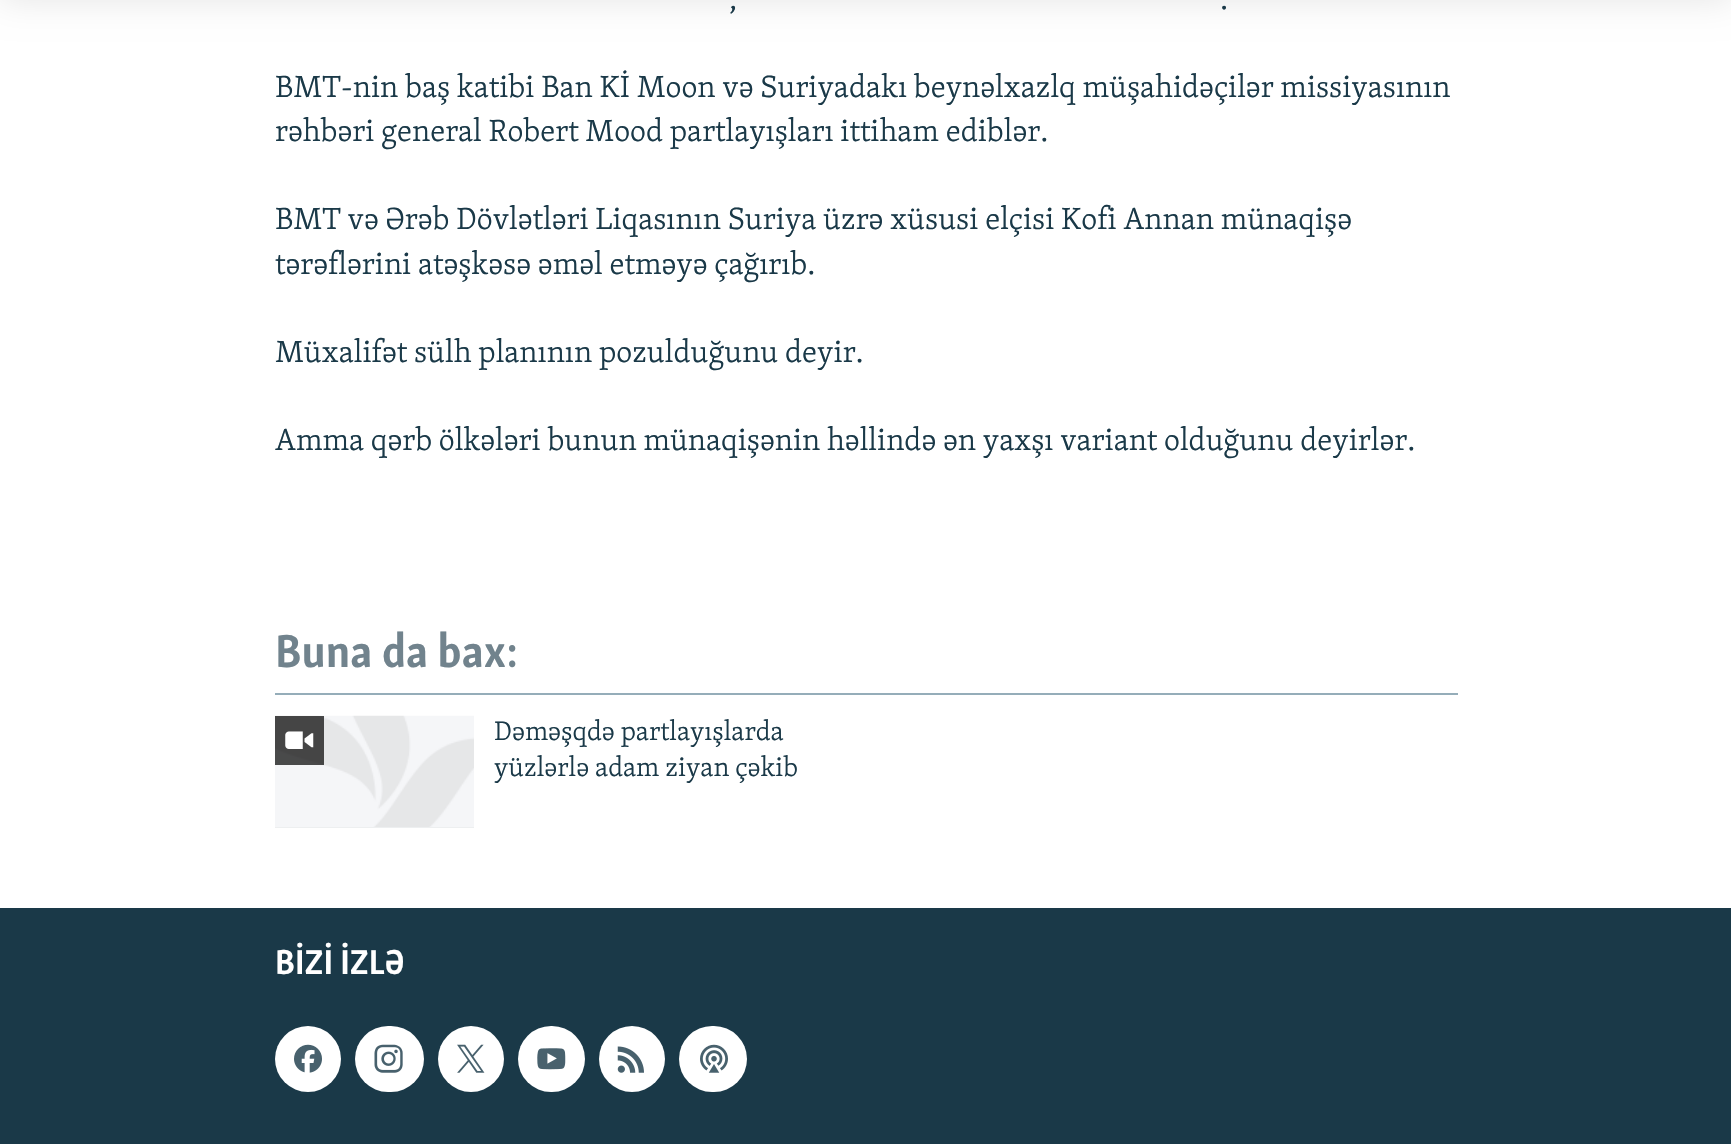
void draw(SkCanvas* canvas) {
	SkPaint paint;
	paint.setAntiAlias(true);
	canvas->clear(0xffffffff);
	paint.setColor(0x1a000000);
	paint.setMaskFilter(SkMaskFilter::MakeBlur(kNormal_SkBlurStyle, 17.5));
	canvas->drawRect(SkRect::MakeXYWH(0, -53, 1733, 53), paint);
	paint.setMaskFilter(nullptr);
	SkFont f1(fontMgr->matchFamilyStyle("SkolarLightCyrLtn", SkFontStyle(300, SkFontStyle::kNormal_Width, SkFontStyle::kUpright_Slant)), 31.5);
	f1.setSubpixel(true);
	paint.setColor(0xff1a3948);
	canvas->drawString(",", 729, 9, f1, paint);
	canvas->drawString(".", 1220, 9, f1, paint);
	canvas->drawString("BMT-nin baş katibi Ban Kİ Moon və Suriyadakı beynəlxazlq müşahidəçilər missiyasının", 275, 97, f1, paint);
	canvas->drawString("rəhbəri general Robert Mood partlayışları ittiham ediblər.", 275, 141, f1, paint);
	canvas->drawString("BMT və Ərəb Dövlətləri Liqasının Suriya üzrə xüsusi elçisi Kofi Annan münaqişə", 275, 229, f1, paint);
	canvas->drawString("tərəflərini atəşkəsə əməl etməyə çağırıb.", 275, 274, f1, paint);
	canvas->drawString("Müxalifət sülh planının pozulduğunu deyir.", 275, 362, f1, paint);
	canvas->drawString("Amma qərb ölkələri bunun münaqişənin həllində ən yaxşı variant olduğunu deyirlər.", 275, 450, f1, paint);
	paint.setColor(0xff95adb9);
	canvas->drawRect(SkRect::MakeXYWH(275, 693, 1183, 2), paint);
	SkFont f2(fontMgr->matchFamilyStyle("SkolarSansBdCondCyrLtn", SkFontStyle::Bold()), 47.25);
	f2.setSubpixel(true);
	paint.setColor(0xff71838d);
	canvas->drawString("Buna da bax:", 275, 667, f2, paint);
	paint.setColor(0xffedeff0);
	canvas->drawRect(SkRect::MakeXYWH(275, 827, 199, 1), paint);
	canvas->drawImageRect(SkImages::DeferredFromEncodedData(SkData::MakeFromFileName("img1.png")), SkRect::MakeXYWH(275, 715, 199, 112), SkSamplingOptions());
	paint.setColor(0xb3000000);
	canvas->drawRect(SkRect::MakeXYWH(275, 716, 49, 49), paint);
	canvas->drawImageRect(SkImages::DeferredFromEncodedData(SkData::MakeFromFileName("img2.png")), SkRect::MakeXYWH(285, 731, 29, 18), SkSamplingOptions());
	SkFont f3(fontMgr->matchFamilyStyle("SkolarLightCyrLtn", SkFontStyle(300, SkFontStyle::kNormal_Width, SkFontStyle::kUpright_Slant)), 27.5);
	f3.setSubpixel(true);
	paint.setColor(0xff1a3948);
	canvas->drawString("Dəməşqdə partlayışlarda", 494, 740, f3, paint);
	canvas->drawString("yüzlərlə adam ziyan çəkib", 494, 776, f3, paint);
	canvas->drawRect(SkRect::MakeXYWH(0, 908, 1731, 236), paint);
	SkFont f4(fontMgr->matchFamilyStyle("SkolarSansBdCondCyrLtn", SkFontStyle::Bold()), 35.5);
	f4.setSubpixel(true);
	paint.setColor(0xffffffff);
	canvas->drawString("BİZİ İZLƏ", 275, 974, f4, paint);
	canvas->drawCircle(308, 1059, 33, paint);
	canvas->drawImageRect(SkImages::DeferredFromEncodedData(SkData::MakeFromFileName("img3.png")), SkRect::MakeXYWH(294, 1044, 28, 29), SkSamplingOptions());
	canvas->drawRoundRect(SkRect::MakeXYWH(355, 1026, 69, 66), 33, 33, paint);
	canvas->drawImageRect(SkImages::DeferredFromEncodedData(SkData::MakeFromFileName("img4.png")), SkRect::MakeXYWH(374, 1044, 29, 29), SkSamplingOptions());
	canvas->drawCircle(471, 1059, 33, paint);
	canvas->drawImageRect(SkImages::DeferredFromEncodedData(SkData::MakeFromFileName("img5.png")), SkRect::MakeXYWH(457, 1044, 28, 29), SkSamplingOptions());
	canvas->drawRoundRect(SkRect::MakeXYWH(518, 1026, 67, 66), 33, 33, paint);
	canvas->drawImageRect(SkImages::DeferredFromEncodedData(SkData::MakeFromFileName("img6.png")), SkRect::MakeXYWH(537, 1048, 29, 22), SkSamplingOptions());
	canvas->drawCircle(632, 1059, 33, paint);
	canvas->drawImageRect(SkImages::DeferredFromEncodedData(SkData::MakeFromFileName("img7.png")), SkRect::MakeXYWH(617, 1046, 27, 27), SkSamplingOptions());
	canvas->drawRoundRect(SkRect::MakeXYWH(679, 1026, 68, 66), 33, 33, paint);
	canvas->drawImageRect(SkImages::DeferredFromEncodedData(SkData::MakeFromFileName("img8.png")), SkRect::MakeXYWH(700, 1044, 28, 29), SkSamplingOptions());
}
